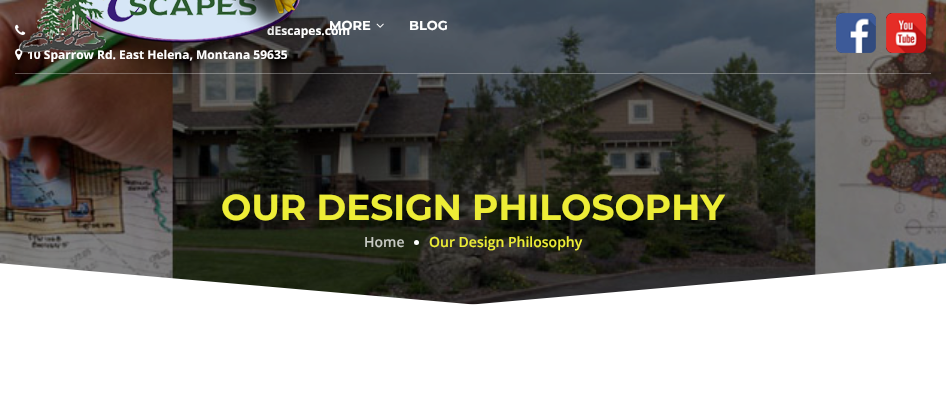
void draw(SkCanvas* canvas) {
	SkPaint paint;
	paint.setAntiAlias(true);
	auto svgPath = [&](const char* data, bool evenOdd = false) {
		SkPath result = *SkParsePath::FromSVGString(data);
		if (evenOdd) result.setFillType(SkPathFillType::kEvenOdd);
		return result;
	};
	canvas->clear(0xffffffff);
	canvas->drawImageRect(SkImages::DeferredFromEncodedData(SkData::MakeFromFileName("img8.png")), SkRect::MakeXYWH(0, 0, 946, 305), SkSamplingOptions());
	canvas->drawImageRect(SkImages::DeferredFromEncodedData(SkData::MakeFromFileName("img1.png")), SkRect::MakeXYWH(15, 24, 11, 11), SkSamplingOptions());
	SkFont f1(fontMgr->matchFamilyStyle("Open Sans", SkFontStyle::Bold()), 12);
	f1.setSubpixel(true);
	paint.setColor(0xffffffff);
	canvas->drawString(".", 61, 35, f1, paint);
	canvas->drawImageRect(SkImages::DeferredFromEncodedData(SkData::MakeFromFileName("img2.png")), SkRect::MakeXYWH(136, 35, 5, 1), SkSamplingOptions());
	canvas->drawString("dEscapes.com", 267, 35, f1, paint);
	canvas->drawImageRect(SkImages::DeferredFromEncodedData(SkData::MakeFromFileName("img3.png")), SkRect::MakeXYWH(15, 48, 8, 12), SkSamplingOptions());
	canvas->drawString("10 Sparrow Rd. East Helena, Montana 59635", 27, 59, f1, paint);
	canvas->drawImageRect(SkImages::DeferredFromEncodedData(SkData::MakeFromFileName("img4.png")), SkRect::MakeXYWH(836, 13, 40, 40), SkSamplingOptions());
	canvas->drawImageRect(SkImages::DeferredFromEncodedData(SkData::MakeFromFileName("img5.png")), SkRect::MakeXYWH(886, 13, 40, 40), SkSamplingOptions());
	paint.setColor(0x4dffffff);
	canvas->drawRect(SkRect::MakeXYWH(15, 73, 916, 1), paint);
	canvas->drawImageRect(SkImages::DeferredFromEncodedData(SkData::MakeFromFileName("img6.png")), SkRect::MakeXYWH(18, 0, 284, 53), SkSamplingOptions());
	SkFont f2(fontMgr->matchFamilyStyle("Montserrat", SkFontStyle::Bold()), 13);
	f2.setSubpixel(true);
	paint.setColor(0xffffffff);
	canvas->drawString("MORE", 329, 30, f2, paint);
	canvas->drawImageRect(SkImages::DeferredFromEncodedData(SkData::MakeFromFileName("img7.png")), SkRect::MakeXYWH(376, 23, 8, 5), SkSamplingOptions());
	canvas->drawString("BLOG", 409, 30, f2, paint);
	SkFont f3(fontMgr->matchFamilyStyle("Montserrat", SkFontStyle::Bold()), 36);
	f3.setSubpixel(true);
	paint.setColor(0xffeded36);
	canvas->drawString("OUR DESIGN PHILOSOPHY", 221, 220, f3, paint);
	SkFont f4(fontMgr->matchFamilyStyle("Open Sans", SkFontStyle(600, SkFontStyle::kNormal_Width, SkFontStyle::kUpright_Slant)), 14);
	f4.setSubpixel(true);
	paint.setColor(0xffc7c9c4);
	canvas->drawString("Home", 364, 247, f4, paint);
	paint.setColor(0xffffffff);
	canvas->drawCircle(416.5, 242.5, 2.5, paint);
	paint.setColor(0xffeded36);
	canvas->drawString("Our Design Philosophy", 429, 247, f4, paint);
	canvas->save();
	canvas->clipRect(SkRect::MakeXYWH(0, 240, 946, 90));
	paint.setColor(0xffffffff);
	canvas->drawPath(svgPath("M-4 263L514 308L506 398L-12 352Z"), paint);
	canvas->drawPath(svgPath("M432 308L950 263L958 352L440 398Z"), paint);
	canvas->restore();
}
